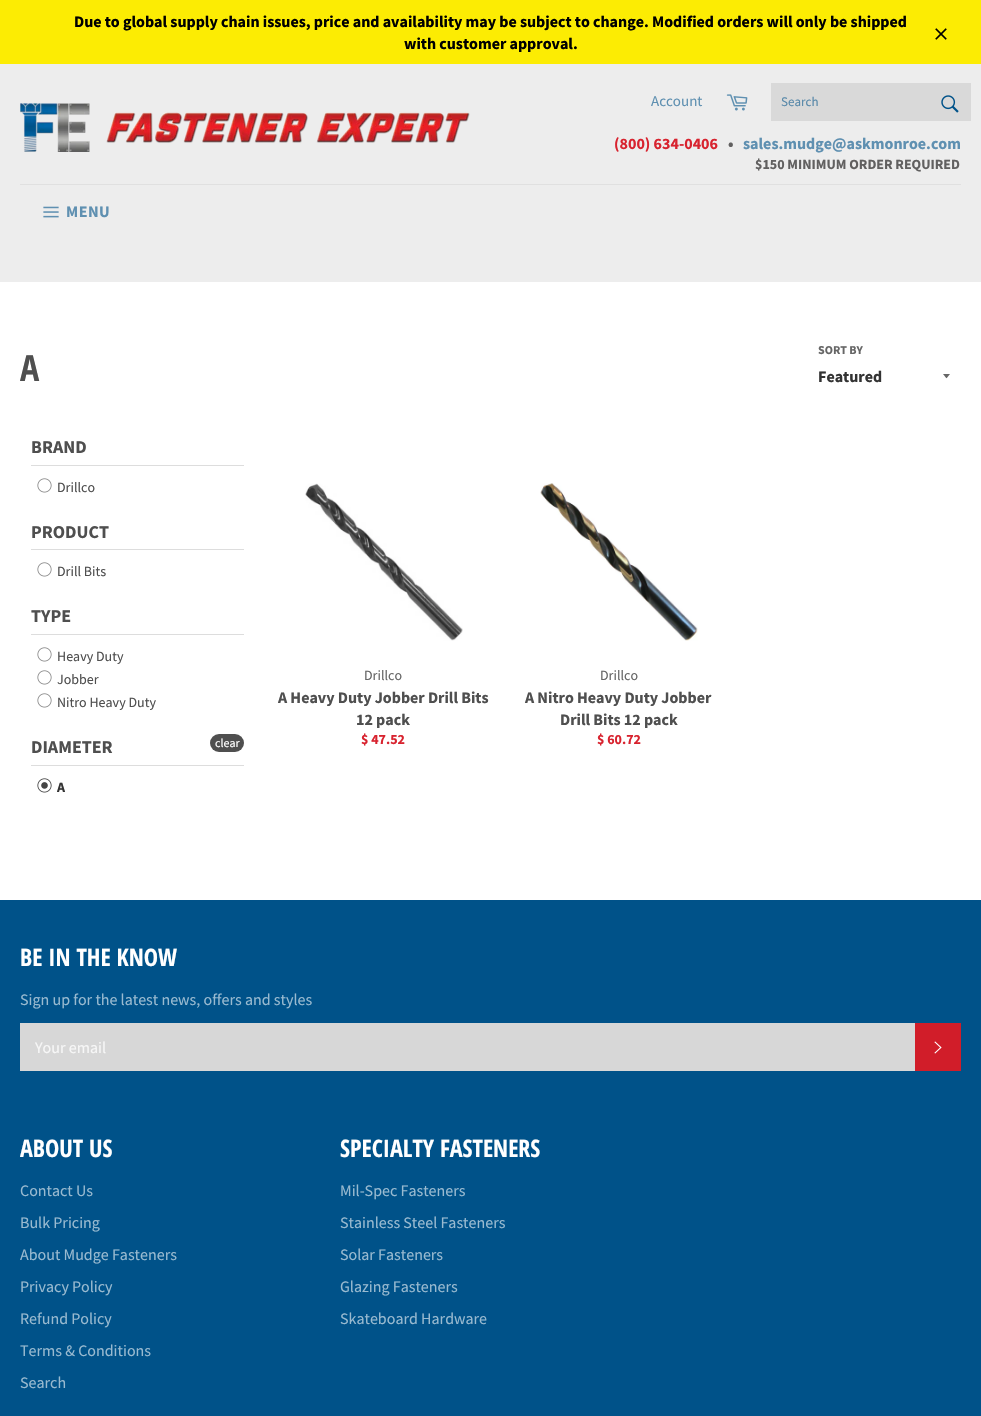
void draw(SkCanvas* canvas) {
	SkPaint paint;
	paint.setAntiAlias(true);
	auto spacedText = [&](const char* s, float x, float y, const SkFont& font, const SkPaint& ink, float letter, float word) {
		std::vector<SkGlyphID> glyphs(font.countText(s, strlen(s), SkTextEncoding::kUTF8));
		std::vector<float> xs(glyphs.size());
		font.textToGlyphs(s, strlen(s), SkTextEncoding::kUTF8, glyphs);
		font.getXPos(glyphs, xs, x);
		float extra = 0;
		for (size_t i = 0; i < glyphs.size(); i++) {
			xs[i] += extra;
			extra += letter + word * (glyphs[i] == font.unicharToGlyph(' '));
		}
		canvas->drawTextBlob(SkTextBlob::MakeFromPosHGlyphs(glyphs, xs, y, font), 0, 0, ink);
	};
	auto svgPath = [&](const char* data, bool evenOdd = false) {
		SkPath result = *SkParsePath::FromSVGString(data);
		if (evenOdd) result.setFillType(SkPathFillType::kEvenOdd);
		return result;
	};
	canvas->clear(0xffffffff);
	paint.setColor(0xfffcec03);
	canvas->drawRect(SkRect::MakeXYWH(0, 0, 981, 64), paint);
	SkFont f1(fontMgr->matchFamilyStyle("Source Sans Pro", SkFontStyle::Bold()), 16);
	f1.setSubpixel(true);
	paint.setColor(0xff000000);
	canvas->drawString("Due to global supply chain issues, price and availability may be subject to change. Modified orders will only be shipped", 74, 27, f1, paint);
	canvas->drawString("with customer approval.", 404, 49, f1, paint);
	canvas->drawImageRect(SkImages::DeferredFromEncodedData(SkData::MakeFromFileName("img1.png")), SkRect::MakeXYWH(935, 28, 12, 12), SkSamplingOptions());
	paint.setColor(0xffededed);
	canvas->drawRect(SkRect::MakeXYWH(0, 64, 981, 218), paint);
	canvas->drawImageRect(SkImages::DeferredFromEncodedData(SkData::MakeFromFileName("img2.png")), SkRect::MakeXYWH(20, 103, 450, 49), SkSamplingOptions());
	SkFont f2(fontMgr->matchFamilyStyle("Source Sans Pro", SkFontStyle::Normal()), 15);
	f2.setSubpixel(true);
	paint.setColor(0xff5f90b1);
	canvas->drawString("Account", 651, 106, f2, paint);
	canvas->drawImageRect(SkImages::DeferredFromEncodedData(SkData::MakeFromFileName("img3.png")), SkRect::MakeXYWH(726, 94, 22, 17), SkSamplingOptions());
	paint.setColor(0xffd9d9d9);
	canvas->drawRect(SkRect::MakeXYWH(771, 83, 200, 38), paint);
	SkFont f3(fontMgr->matchFamilyStyle("Source Sans Pro", SkFontStyle::Normal()), 13);
	f3.setSubpixel(true);
	paint.setColor(0xff5788a9);
	canvas->drawString("Search", 781, 106, f3, paint);
	canvas->drawImageRect(SkImages::DeferredFromEncodedData(SkData::MakeFromFileName("img4.png")), SkRect::MakeXYWH(941, 95, 18, 18), SkSamplingOptions());
	paint.setColor(0xffd8232f);
	canvas->drawString("(800) 634-0406", 614, 149, f1, paint);
	paint.setColor(0xff616060);
	canvas->drawString("•", 728, 149, f1, paint);
	paint.setColor(0xff5f90b1);
	canvas->drawString("sales.mudge@askmonroe.com", 743, 149, f1, paint);
	SkFont f4(fontMgr->matchFamilyStyle("Source Sans Pro", SkFontStyle::Bold()), 14);
	f4.setSubpixel(true);
	paint.setColor(0xff616060);
	canvas->drawString("$150 MINIMUM ORDER REQUIRED", 755, 169, f4, paint);
	paint.setColor(0xffe0e0e0);
	canvas->drawRect(SkRect::MakeXYWH(20, 184, 941, 1), paint);
	canvas->drawImageRect(SkImages::DeferredFromEncodedData(SkData::MakeFromFileName("img5.png")), SkRect::MakeXYWH(43, 206, 16, 12), SkSamplingOptions());
	paint.setColor(0xff5f90b1);
	spacedText("MENU", 66, 217, f1, paint, 0.5, 0);
	SkFont f5(fontMgr->matchFamilyStyle("Open Sans Condensed", SkFontStyle::Bold()), 36);
	f5.setSubpixel(true);
	paint.setColor(0xff4f4f4f);
	canvas->drawString("A", 20, 381, f5, paint);
	SkFont f6(fontMgr->matchFamilyStyle("Source Sans Pro", SkFontStyle::Bold()), 12);
	f6.setSubpixel(true);
	paint.setColor(0xff666666);
	canvas->drawString("SORT BY", 818, 354, f6, paint);
	canvas->drawPath(svgPath("M943 374C947.5 379.5 945.5 379.5 950 374Z"), paint);
	paint.setColor(0xff333333);
	canvas->drawString("Featured", 818, 382, f1, paint);
	paint.setColor(0xffdddddd);
	canvas->drawRect(SkRect::MakeXYWH(31, 465, 213, 1), paint);
	SkFont f7(fontMgr->matchFamilyStyle("Source Sans Pro", SkFontStyle::Bold()), 18);
	f7.setSubpixel(true);
	paint.setColor(0xff4f4f4f);
	canvas->drawString("BRAND", 31, 453, f7, paint);
	canvas->drawImageRect(SkImages::DeferredFromEncodedData(SkData::MakeFromFileName("img6.png")), SkRect::MakeXYWH(37, 478, 15, 15), SkSamplingOptions());
	SkFont f8(fontMgr->matchFamilyStyle("Source Sans Pro", SkFontStyle::Normal()), 14);
	f8.setSubpixel(true);
	canvas->drawString("Drillco", 57, 492, f8, paint);
	paint.setColor(0xffdddddd);
	canvas->drawRect(SkRect::MakeXYWH(31, 549, 213, 1), paint);
	paint.setColor(0xff4f4f4f);
	canvas->drawString("PRODUCT", 31, 538, f7, paint);
	canvas->drawImageRect(SkImages::DeferredFromEncodedData(SkData::MakeFromFileName("img6.png")), SkRect::MakeXYWH(37, 562, 15, 15), SkSamplingOptions());
	canvas->drawString("Drill Bits", 57, 576, f8, paint);
	paint.setColor(0xffdddddd);
	canvas->drawRect(SkRect::MakeXYWH(31, 634, 213, 1), paint);
	paint.setColor(0xff4f4f4f);
	canvas->drawString("TYPE", 31, 622, f7, paint);
	canvas->drawImageRect(SkImages::DeferredFromEncodedData(SkData::MakeFromFileName("img6.png")), SkRect::MakeXYWH(37, 647, 15, 15), SkSamplingOptions());
	canvas->drawString("Heavy Duty", 57, 661, f8, paint);
	canvas->drawImageRect(SkImages::DeferredFromEncodedData(SkData::MakeFromFileName("img6.png")), SkRect::MakeXYWH(37, 670, 15, 15), SkSamplingOptions());
	canvas->drawString("Jobber", 57, 684, f8, paint);
	canvas->drawImageRect(SkImages::DeferredFromEncodedData(SkData::MakeFromFileName("img6.png")), SkRect::MakeXYWH(37, 693, 15, 15), SkSamplingOptions());
	canvas->drawString("Nitro Heavy Duty", 57, 707, f8, paint);
	paint.setColor(0xffdddddd);
	canvas->drawRect(SkRect::MakeXYWH(31, 765, 213, 1), paint);
	paint.setColor(0xff4f4f4f);
	canvas->drawString("DIAMETER", 31, 753, f7, paint);
	canvas->drawRoundRect(SkRect::MakeXYWH(210, 734, 34, 18), 9, 9, paint);
	SkFont f9(fontMgr->matchFamilyStyle("Source Sans Pro", SkFontStyle::Normal()), 12);
	f9.setSubpixel(true);
	paint.setColor(0xffffffff);
	canvas->drawString("clear", 215, 747, f9, paint);
	canvas->drawImageRect(SkImages::DeferredFromEncodedData(SkData::MakeFromFileName("img7.png")), SkRect::MakeXYWH(37, 778, 15, 15), SkSamplingOptions());
	paint.setColor(0xff333333);
	canvas->drawString("A", 57, 792, f4, paint);
	canvas->drawImageRect(SkImages::DeferredFromEncodedData(SkData::MakeFromFileName("img8.png")), SkRect::MakeXYWH(305, 483, 158, 158), SkSamplingOptions());
	paint.setColor(0xff666666);
	canvas->drawString("Drillco", 364, 680, f8, paint);
	paint.setColor(0xff4f4f4f);
	canvas->drawString("A Heavy Duty Jobber Drill Bits", 278, 703, f1, paint);
	canvas->drawString("12 pack", 356, 725, f1, paint);
	paint.setColor(0xffd8232f);
	canvas->drawString("$ 47.52", 361, 744, f4, paint);
	canvas->drawImageRect(SkImages::DeferredFromEncodedData(SkData::MakeFromFileName("img9.png")), SkRect::MakeXYWH(540, 483, 158, 158), SkSamplingOptions());
	paint.setColor(0xff666666);
	canvas->drawString("Drillco", 600, 680, f8, paint);
	paint.setColor(0xff4f4f4f);
	canvas->drawString("A Nitro Heavy Duty Jobber", 525, 703, f1, paint);
	canvas->drawString("Drill Bits 12 pack", 560, 725, f1, paint);
	paint.setColor(0xffd8232f);
	canvas->drawString("$ 60.72", 597, 744, f4, paint);
	paint.setColor(0xff005289);
	canvas->drawRect(SkRect::MakeXYWH(0, 900, 981, 516), paint);
	SkFont f10(fontMgr->matchFamilyStyle("Open Sans Condensed", SkFontStyle::Bold()), 24);
	f10.setSubpixel(true);
	paint.setColor(0xffffffff);
	canvas->drawString("BE IN THE KNOW", 20, 966, f10, paint);
	SkFont f11(fontMgr->matchFamilyStyle("Source Sans Pro", SkFontStyle::Normal()), 16);
	f11.setSubpixel(true);
	paint.setColor(0xff99bad0);
	canvas->drawString("Sign up for the latest news, offers and styles", 20, 1005, f11, paint);
	paint.setColor(0xffd7d7d7);
	canvas->drawRect(SkRect::MakeXYWH(20, 1023, 895, 48), paint);
	paint.setColor(0xfff7f7f7);
	canvas->drawString("Your email", 35, 1053, f11, paint);
	paint.setColor(0xffd11d29);
	canvas->drawRect(SkRect::MakeXYWH(915, 1023, 46, 48), paint);
	canvas->drawImageRect(SkImages::DeferredFromEncodedData(SkData::MakeFromFileName("img10.png")), SkRect::MakeXYWH(934, 1041, 8, 13), SkSamplingOptions());
	paint.setColor(0xffffffff);
	canvas->drawString("ABOUT US", 20, 1157, f10, paint);
	paint.setColor(0xff99bad0);
	canvas->drawString("Contact Us", 20, 1196, f11, paint);
	canvas->drawString("Bulk Pricing", 20, 1228, f11, paint);
	canvas->drawString("About Mudge Fasteners", 20, 1260, f11, paint);
	canvas->drawString("Privacy Policy", 20, 1292, f11, paint);
	canvas->drawString("Refund Policy", 20, 1324, f11, paint);
	canvas->drawString("Terms & Conditions", 20, 1356, f11, paint);
	canvas->drawString("Search", 20, 1388, f11, paint);
	paint.setColor(0xffffffff);
	canvas->drawString("SPECIALTY FASTENERS", 340, 1157, f10, paint);
	paint.setColor(0xff99bad0);
	canvas->drawString("Mil-Spec Fasteners", 340, 1196, f11, paint);
	canvas->drawString("Stainless Steel Fasteners", 340, 1228, f11, paint);
	canvas->drawString("Solar Fasteners", 340, 1260, f11, paint);
	canvas->drawString("Glazing Fasteners", 340, 1292, f11, paint);
	canvas->drawString("Skateboard Hardware", 340, 1324, f11, paint);
}
